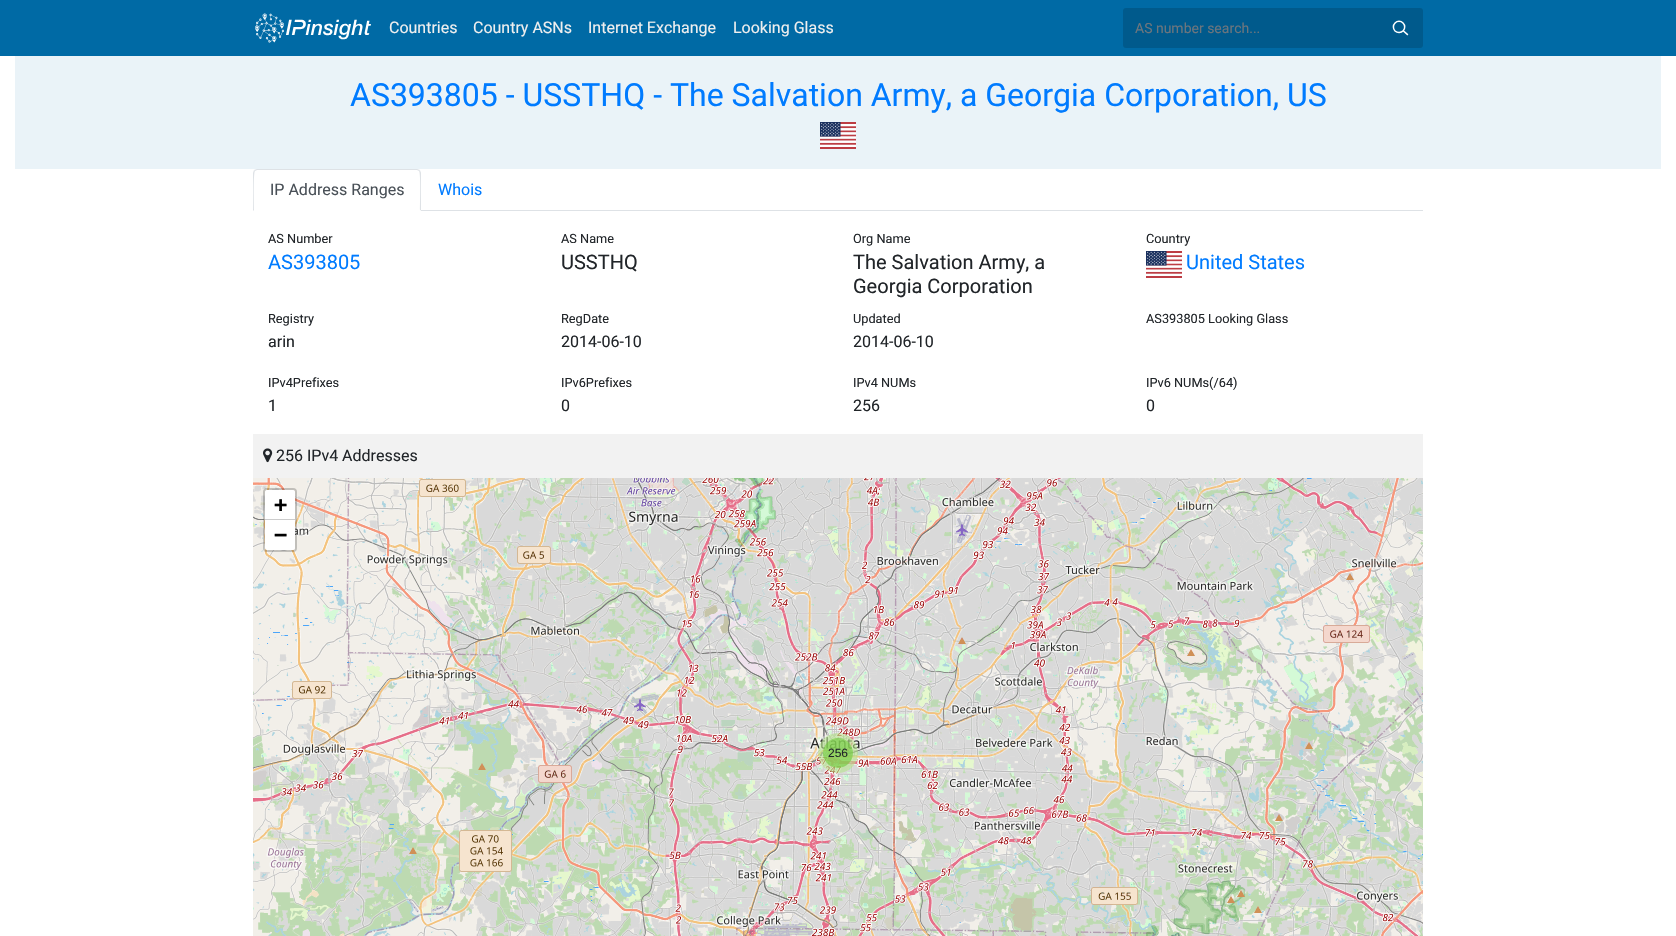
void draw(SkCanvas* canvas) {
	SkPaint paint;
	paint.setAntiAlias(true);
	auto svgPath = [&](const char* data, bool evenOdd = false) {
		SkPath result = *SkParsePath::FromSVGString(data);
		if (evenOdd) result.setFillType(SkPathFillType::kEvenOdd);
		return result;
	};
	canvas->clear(0xffffffff);
	paint.setColor(0xff006aa5);
	canvas->drawRect(SkRect::MakeXYWH(0, 0, 1676, 56), paint);
	canvas->drawImageRect(SkImages::DeferredFromEncodedData(SkData::MakeFromFileName("img1.png")), SkRect::MakeXYWH(255, 13, 116, 30), SkSamplingOptions());
	SkFont f1(fontMgr->matchFamilyStyle("Roboto", SkFontStyle::Normal()), 16);
	f1.setSubpixel(true);
	paint.setColor(0xffefefef);
	canvas->drawString("Countries", 389, 33, f1, paint);
	canvas->drawString("Country ASNs", 473, 33, f1, paint);
	canvas->drawString("Internet Exchange", 588, 33, f1, paint);
	canvas->drawString("Looking Glass", 733, 33, f1, paint);
	paint.setColor(0xff005a8c);
	canvas->drawRoundRect(SkRect::MakeXYWH(1123, 8, 300, 40), 3, 3, paint);
	SkFont f2(fontMgr->matchFamilyStyle("Roboto", SkFontStyle::Normal()), 14);
	f2.setSubpixel(true);
	paint.setColor(0xff6c757d);
	canvas->drawString("AS number search...", 1135, 33, f2, paint);
	canvas->drawImageRect(SkImages::DeferredFromEncodedData(SkData::MakeFromFileName("img2.png")), SkRect::MakeXYWH(1392, 20, 17, 16), SkSamplingOptions());
	paint.setColor(0xffeaf3f8);
	canvas->drawRect(SkRect::MakeXYWH(15, 56, 1646, 113), paint);
	SkFont f3(fontMgr->matchFamilyStyle("Roboto", SkFontStyle::Normal()), 32);
	f3.setSubpixel(true);
	paint.setColor(0xff007bff);
	canvas->drawString("AS393805 - USSTHQ - The Salvation Army, a Georgia Corporation, US", 350, 106, f3, paint);
	canvas->drawImageRect(SkImages::DeferredFromEncodedData(SkData::MakeFromFileName("img3.png")), SkRect::MakeXYWH(820, 122, 36, 27), SkSamplingOptions());
	paint.setColor(0xffdee2e6);
	canvas->drawRect(SkRect::MakeXYWH(421, 210, 1002, 1), paint);
	canvas->drawPath(svgPath("M257 169L254 170L255 171L257 170H417L419 171L420 170L417 169Z"), paint);
	canvas->drawPath(svgPath("M421 211V173C421 172 420 171 420 170L419 171C421 173 420 205 420 210Z"), paint);
	paint.setColor(0xffffffff);
	canvas->drawPath(svgPath("M421 211L420 210H254L253 211Z"), paint);
	paint.setColor(0xffdee2e6);
	canvas->drawPath(svgPath("M253 211L254 210C254 205 253 173 255 171L254 170L253 173Z"), paint);
	paint.setColor(0xff495057);
	canvas->drawString("IP Address Ranges", 270, 195, f1, paint);
	paint.setColor(0xff007bff);
	canvas->drawString("Whois", 438, 195, f1, paint);
	SkFont f4(fontMgr->matchFamilyStyle("Roboto", SkFontStyle::Normal()), 12.75);
	f4.setSubpixel(true);
	paint.setColor(0xff212529);
	canvas->drawString("AS Number", 268, 243, f4, paint);
	SkFont f5(fontMgr->matchFamilyStyle("Roboto", SkFontStyle::Normal()), 20);
	f5.setSubpixel(true);
	paint.setColor(0xff007bff);
	canvas->drawString("AS393805", 268, 269, f5, paint);
	paint.setColor(0xff212529);
	canvas->drawString("AS Name", 561, 243, f4, paint);
	canvas->drawString("USSTHQ", 561, 269, f5, paint);
	canvas->drawString("Org Name", 853, 243, f4, paint);
	canvas->drawString("The Salvation Army, a", 853, 269, f5, paint);
	canvas->drawString("Georgia Corporation", 853, 293, f5, paint);
	canvas->drawString("Country", 1146, 243, f4, paint);
	canvas->drawImageRect(SkImages::DeferredFromEncodedData(SkData::MakeFromFileName("img4.png")), SkRect::MakeXYWH(1146, 251, 36, 27), SkSamplingOptions());
	paint.setColor(0xff007bff);
	canvas->drawString("United States", 1186, 269, f5, paint);
	paint.setColor(0xff212529);
	canvas->drawString("Registry", 268, 323, f4, paint);
	canvas->drawString("arin", 268, 347, f1, paint);
	canvas->drawString("RegDate", 561, 323, f4, paint);
	canvas->drawString("2014-06-10", 561, 347, f1, paint);
	canvas->drawString("Updated", 853, 323, f4, paint);
	canvas->drawString("2014-06-10", 853, 347, f1, paint);
	canvas->drawString("AS393805 Looking Glass", 1146, 323, f4, paint);
	canvas->drawString("IPv4Prefixes", 268, 387, f4, paint);
	canvas->drawString("1", 268, 411, f1, paint);
	canvas->drawString("IPv6Prefixes", 561, 387, f4, paint);
	canvas->drawString("0", 561, 411, f1, paint);
	canvas->drawString("IPv4 NUMs", 853, 387, f4, paint);
	canvas->drawString("256", 853, 411, f1, paint);
	canvas->drawString("IPv6 NUMs(/64)", 1146, 387, f4, paint);
	canvas->drawString("0", 1146, 411, f1, paint);
	paint.setColor(0xfff2f2f2);
	canvas->drawRect(SkRect::MakeXYWH(253, 434, 1170, 44), paint);
	canvas->drawImageRect(SkImages::DeferredFromEncodedData(SkData::MakeFromFileName("img5.png")), SkRect::MakeXYWH(263, 448, 10, 15), SkSamplingOptions());
	paint.setColor(0xff212529);
	canvas->drawString("256 IPv4 Addresses", 276, 461, f1, paint);
	canvas->drawImageRect(SkImages::DeferredFromEncodedData(SkData::MakeFromFileName("img6.png")), SkRect::MakeXYWH(253, 478, 92, 62), SkSamplingOptions());
	canvas->drawImageRect(SkImages::DeferredFromEncodedData(SkData::MakeFromFileName("img12.png")), SkRect::MakeXYWH(253, 540, 92, 256), SkSamplingOptions());
	paint.setStroke(true);
	paint.setStrokeWidth(2);
	paint.setColor(0x33000000);
	canvas->drawRoundRect(SkRect::MakeXYWH(264, 489, 32, 62), 3, 3, paint);
	paint.setStroke(false);
	paint.setColor(0xffffffff);
	canvas->drawPath(svgPath("M267 490H293C294 490 295 491 295 492V520H265V492C265 491 266 490 267 490Z"), paint);
	paint.setColor(0xffcccccc);
	canvas->drawRect(SkRect::MakeXYWH(265, 519, 30, 1), paint);
	SkFont f6(fontMgr->matchFamilyStyle("DejaVu Sans Mono", SkFontStyle::Bold()), 22);
	f6.setSubpixel(true);
	paint.setColor(0xff000000);
	canvas->drawString("+", 274, 512, f6, paint);
	paint.setColor(0xffffffff);
	canvas->drawPath(svgPath("M265 520H295V548C295 549 294 550 293 550H267C266 550 265 549 265 548Z"), paint);
	paint.setColor(0xff000000);
	canvas->drawString("−", 274, 542, f6, paint);
	canvas->drawImageRect(SkImages::DeferredFromEncodedData(SkData::MakeFromFileName("img7.png")), SkRect::MakeXYWH(345, 478, 256, 62), SkSamplingOptions());
	canvas->drawImageRect(SkImages::DeferredFromEncodedData(SkData::MakeFromFileName("img8.png")), SkRect::MakeXYWH(601, 478, 256, 62), SkSamplingOptions());
	canvas->drawImageRect(SkImages::DeferredFromEncodedData(SkData::MakeFromFileName("img9.png")), SkRect::MakeXYWH(857, 478, 256, 62), SkSamplingOptions());
	canvas->drawImageRect(SkImages::DeferredFromEncodedData(SkData::MakeFromFileName("img10.png")), SkRect::MakeXYWH(1113, 478, 256, 62), SkSamplingOptions());
	canvas->drawImageRect(SkImages::DeferredFromEncodedData(SkData::MakeFromFileName("img11.png")), SkRect::MakeXYWH(1369, 478, 54, 62), SkSamplingOptions());
	canvas->drawImageRect(SkImages::DeferredFromEncodedData(SkData::MakeFromFileName("img13.png")), SkRect::MakeXYWH(345, 540, 256, 256), SkSamplingOptions());
	canvas->drawImageRect(SkImages::DeferredFromEncodedData(SkData::MakeFromFileName("img14.png")), SkRect::MakeXYWH(601, 540, 256, 256), SkSamplingOptions());
	canvas->drawImageRect(SkImages::DeferredFromEncodedData(SkData::MakeFromFileName("img15.png")), SkRect::MakeXYWH(857, 540, 256, 256), SkSamplingOptions());
	canvas->drawImageRect(SkImages::DeferredFromEncodedData(SkData::MakeFromFileName("img16.png")), SkRect::MakeXYWH(1113, 540, 256, 256), SkSamplingOptions());
	canvas->drawImageRect(SkImages::DeferredFromEncodedData(SkData::MakeFromFileName("img17.png")), SkRect::MakeXYWH(1369, 540, 54, 256), SkSamplingOptions());
	canvas->drawImageRect(SkImages::DeferredFromEncodedData(SkData::MakeFromFileName("img18.png")), SkRect::MakeXYWH(253, 796, 92, 140), SkSamplingOptions());
	canvas->drawImageRect(SkImages::DeferredFromEncodedData(SkData::MakeFromFileName("img19.png")), SkRect::MakeXYWH(345, 796, 256, 140), SkSamplingOptions());
	canvas->drawImageRect(SkImages::DeferredFromEncodedData(SkData::MakeFromFileName("img20.png")), SkRect::MakeXYWH(601, 796, 256, 140), SkSamplingOptions());
	canvas->drawImageRect(SkImages::DeferredFromEncodedData(SkData::MakeFromFileName("img21.png")), SkRect::MakeXYWH(857, 796, 256, 140), SkSamplingOptions());
	canvas->drawImageRect(SkImages::DeferredFromEncodedData(SkData::MakeFromFileName("img22.png")), SkRect::MakeXYWH(1113, 796, 256, 140), SkSamplingOptions());
	canvas->drawImageRect(SkImages::DeferredFromEncodedData(SkData::MakeFromFileName("img23.png")), SkRect::MakeXYWH(1369, 796, 54, 140), SkSamplingOptions());
	paint.setColor(0x99b5e28c);
	canvas->drawCircle(838, 753, 20, paint);
	paint.setColor(0x996ecc39);
	canvas->drawCircle(838, 753, 15, paint);
	SkFont f7(fontMgr->matchFamilyStyle("Liberation Sans", SkFontStyle::Normal()), 12);
	f7.setSubpixel(true);
	paint.setColor(0xff212529);
	canvas->drawString("256", 828, 757, f7, paint);
}
